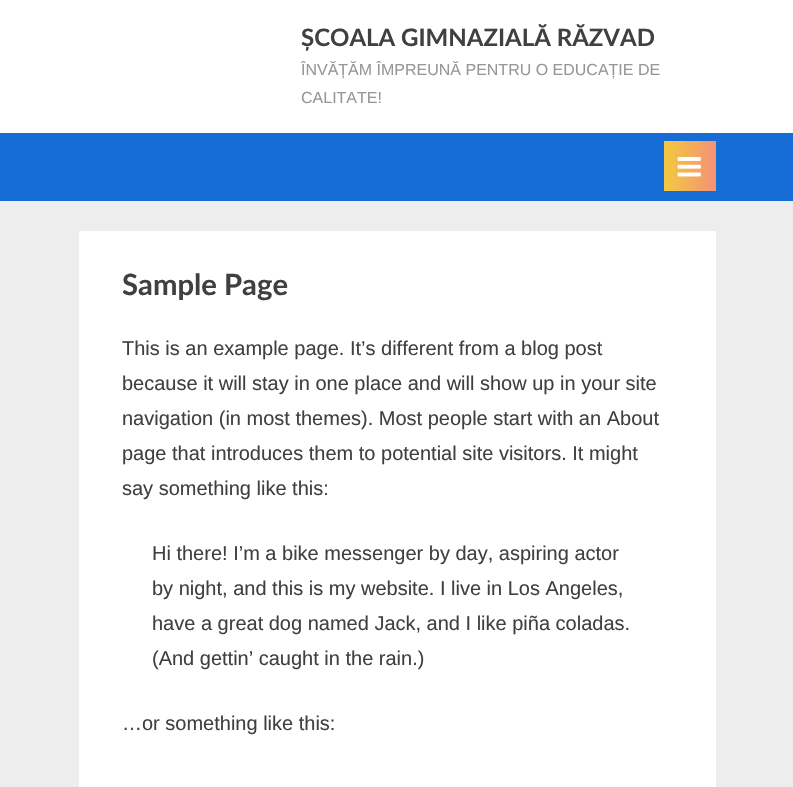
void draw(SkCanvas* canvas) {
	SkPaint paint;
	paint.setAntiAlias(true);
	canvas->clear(0xffededed);
	paint.setColor(0xffffffff);
	canvas->drawRect(SkRect::MakeXYWH(0, 0, 793, 133), paint);
	SkFont f1(fontMgr->matchFamilyStyle("Lato", SkFontStyle::Bold()), 24);
	f1.setSubpixel(true);
	paint.setColor(0xff404040);
	canvas->drawString("ȘCOALA GIMNAZIALĂ RĂZVAD", 301, 46, f1, paint);
	SkFont f2(fontMgr->matchFamilyStyle("Liberation Sans", SkFontStyle::Normal()), 16);
	f2.setSubpixel(true);
	paint.setColor(0xff979797);
	canvas->drawString("ÎNVĂȚĂM ÎMPREUNĂ PENTRU O EDUCAȚIE DE", 301, 75, f2, paint);
	canvas->drawString("CALITATE!", 301, 103, f2, paint);
	paint.setColor(0xff166dd6);
	canvas->drawRect(SkRect::MakeXYWH(0, 133, 793, 68), paint);
	{
		const SkColor colors[] = {0xfff3c841, 0xfff69275, 0xfff3c841};
		const float stops[] = {0, 0.51, 1};
		const SkPoint ends[] = {{571, 166}, {666, 166}};
		paint.setShader(SkGradientShader::MakeLinear(ends, colors, stops, 3, SkTileMode::kClamp));
		paint.setAlpha(255);
	}
	canvas->drawRect(SkRect::MakeXYWH(664, 141, 2, 50), paint);
	{
		const SkColor colors[] = {0xfff3c841, 0xfff69275, 0xfff3c841};
		const float stops[] = {0, 0.51, 1};
		const SkPoint ends[] = {{666, 166}, {761, 166}};
		paint.setShader(SkGradientShader::MakeLinear(ends, colors, stops, 3, SkTileMode::kClamp));
		paint.setAlpha(255);
	}
	canvas->drawRect(SkRect::MakeXYWH(666, 141, 50, 50), paint);
	canvas->drawImageRect(SkImages::DeferredFromEncodedData(SkData::MakeFromFileName("img1.png")), SkRect::MakeXYWH(677, 157, 24, 20), SkSamplingOptions());
	paint.setShader(nullptr);
	paint.setColor(0xffffffff);
	canvas->drawRect(SkRect::MakeXYWH(79, 231, 637, 556), paint);
	SkFont f3(fontMgr->matchFamilyStyle("Lato", SkFontStyle::Bold()), 29.25);
	f3.setSubpixel(true);
	paint.setColor(0xff404040);
	canvas->drawString("Sample Page", 122, 295, f3, paint);
	SkFont f4(fontMgr->matchFamilyStyle("Liberation Sans", SkFontStyle::Normal()), 20);
	f4.setSubpixel(true);
	canvas->drawString("This is an example page. It’s different from a blog post", 122, 355, f4, paint);
	canvas->drawString("because it will stay in one place and will show up in your site", 122, 390, f4, paint);
	canvas->drawString("navigation (in most themes). Most people start with an About", 122, 425, f4, paint);
	canvas->drawString("page that introduces them to potential site visitors. It might", 122, 460, f4, paint);
	canvas->drawString("say something like this:", 122, 495, f4, paint);
	canvas->drawString("Hi there! I’m a bike messenger by day, aspiring actor", 152, 560, f4, paint);
	canvas->drawString("by night, and this is my website. I live in Los Angeles,", 152, 595, f4, paint);
	canvas->drawString("have a great dog named Jack, and I like piña coladas.", 152, 630, f4, paint);
	canvas->drawString("(And gettin’ caught in the rain.)", 152, 665, f4, paint);
	canvas->drawString("…or something like this:", 122, 730, f4, paint);
}
